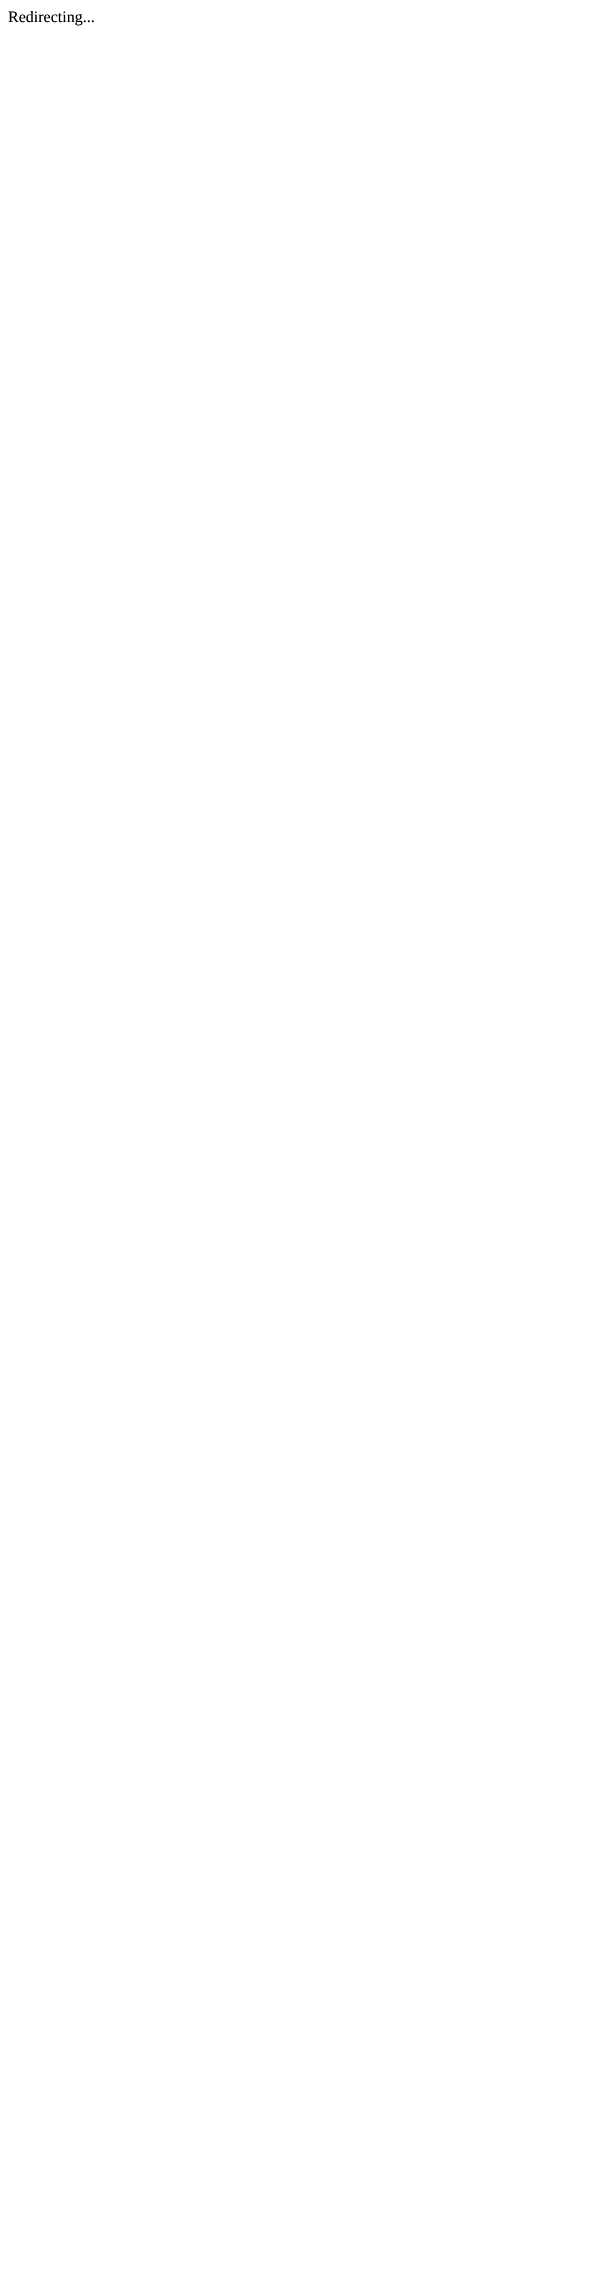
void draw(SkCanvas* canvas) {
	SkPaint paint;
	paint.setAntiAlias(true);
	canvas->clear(0xffffffff);
	SkFont f1(fontMgr->matchFamilyStyle("Liberation Serif", SkFontStyle::Normal()), 16);
	f1.setSubpixel(true);
	paint.setColor(0xff000000);
	canvas->drawString("Redirecting...", 8, 22, f1, paint);
}
